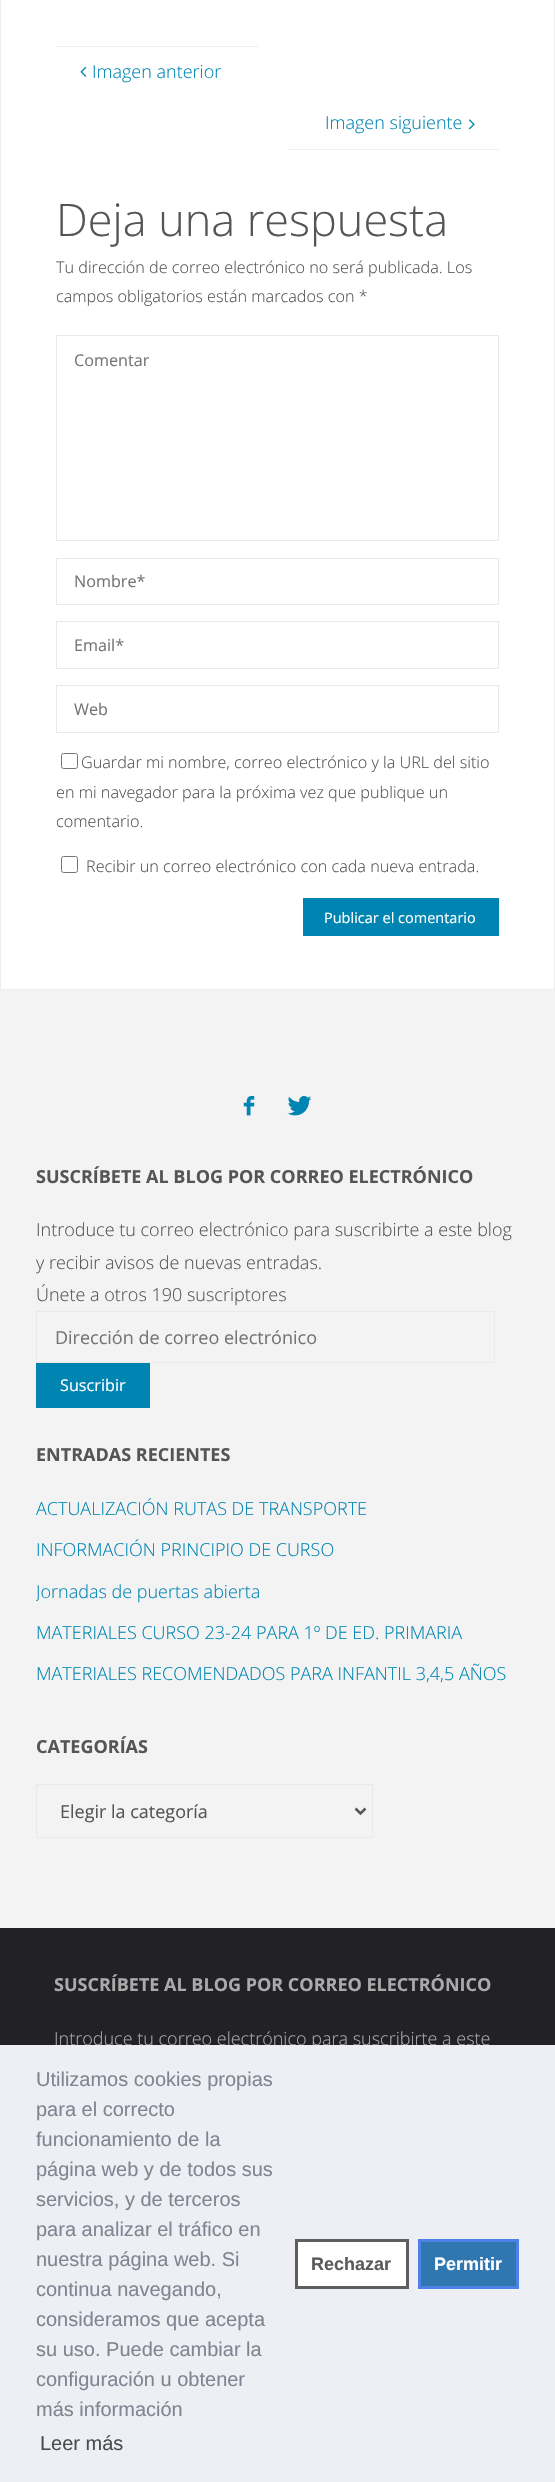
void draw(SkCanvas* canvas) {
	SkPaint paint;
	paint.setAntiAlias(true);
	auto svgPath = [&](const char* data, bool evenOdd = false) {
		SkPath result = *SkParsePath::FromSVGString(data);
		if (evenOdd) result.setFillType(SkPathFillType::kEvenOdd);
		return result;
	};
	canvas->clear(0xfff3f3f3);
	paint.setColor(0xffffffff);
	canvas->drawRect(SkRect::MakeXYWH(0.5, -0.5, 554, 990), paint);
	paint.setStroke(true);
	paint.setStrokeWidth(1);
	paint.setColor(0xffededed);
	canvas->drawRect(SkRect::MakeXYWH(0.5, -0.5, 554, 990), paint);
	paint.setStroke(false);
	paint.setColor(0xffeeeeee);
	canvas->drawRect(SkRect::MakeXYWH(56, 46, 202, 1), paint);
	canvas->drawImageRect(SkImages::DeferredFromEncodedData(SkData::MakeFromFileName("img1.png")), SkRect::MakeXYWH(80, 66, 7, 11), SkSamplingOptions());
	SkFont f1(fontMgr->matchFamilyStyle("Open Sans", SkFontStyle(300, SkFontStyle::kNormal_Width, SkFontStyle::kUpright_Slant)), 18);
	f1.setSubpixel(true);
	paint.setColor(0xff0085b2);
	canvas->drawString("Imagen anterior", 92, 78, f1, paint);
	canvas->drawString("Imagen siguiente", 325, 129, f1, paint);
	canvas->drawImageRect(SkImages::DeferredFromEncodedData(SkData::MakeFromFileName("img2.png")), SkRect::MakeXYWH(468, 119, 7, 11), SkSamplingOptions());
	paint.setColor(0xffeeeeee);
	canvas->drawRect(SkRect::MakeXYWH(289, 149, 210, 1), paint);
	SkFont f2(fontMgr->matchFamilyStyle("Open Sans", SkFontStyle(300, SkFontStyle::kNormal_Width, SkFontStyle::kUpright_Slant)), 45);
	f2.setSubpixel(true);
	paint.setColor(0xff555555);
	canvas->drawString("Deja una respuesta", 56, 236, f2, paint);
	SkFont f3(fontMgr->matchFamilyStyle("Open Sans", SkFontStyle(300, SkFontStyle::kNormal_Width, SkFontStyle::kUpright_Slant)), 16.2);
	f3.setSubpixel(true);
	canvas->drawString("Tu dirección de correo electrónico no será publicada. Los", 56, 273, f3, paint);
	canvas->drawString("campos obligatorios están marcados con *", 56, 302, f3, paint);
	paint.setStroke(true);
	paint.setColor(0xffe9e9e9);
	canvas->drawRect(SkRect::MakeXYWH(56.5, 335.5, 442, 205), paint);
	SkFont f4(fontMgr->matchFamilyStyle("Open Sans", SkFontStyle::Normal()), 16.2);
	f4.setSubpixel(true);
	paint.setStroke(false);
	paint.setColor(0xff757575);
	canvas->drawString("Comentar", 74, 366, f4, paint);
	paint.setStroke(true);
	paint.setColor(0xffe9e9e9);
	canvas->drawRect(SkRect::MakeXYWH(56.5, 558.5, 442, 46), paint);
	paint.setStroke(false);
	paint.setColor(0xff757575);
	canvas->drawString("Nombre*", 74, 587, f4, paint);
	paint.setStroke(true);
	paint.setColor(0xffe9e9e9);
	canvas->drawRect(SkRect::MakeXYWH(56.5, 621.5, 442, 47), paint);
	paint.setStroke(false);
	paint.setColor(0xff757575);
	canvas->drawString("Email*", 74, 651, f4, paint);
	paint.setStroke(true);
	paint.setColor(0xffe9e9e9);
	canvas->drawRect(SkRect::MakeXYWH(56.5, 685.5, 442, 47), paint);
	paint.setStroke(false);
	paint.setColor(0xff757575);
	canvas->drawString("Web", 74, 715, f4, paint);
	paint.setStroke(true);
	paint.setColor(0xff767676);
	canvas->drawRoundRect(SkRect::MakeXYWH(61.5, 753.5, 16, 15), 2, 2, paint);
	paint.setStroke(false);
	paint.setColor(0xff555555);
	canvas->drawString("Guardar mi nombre, correo electrónico y la URL del sitio", 81, 768, f3, paint);
	canvas->drawString("en mi navegador para la próxima vez que publique un", 56, 798, f3, paint);
	canvas->drawString("comentario.", 56, 827, f3, paint);
	paint.setStroke(true);
	paint.setColor(0xff767676);
	canvas->drawRoundRect(SkRect::MakeXYWH(61.5, 856.5, 16, 16), 2, 2, paint);
	paint.setStroke(false);
	paint.setColor(0xff555555);
	canvas->drawString("Recibir un correo electrónico con cada nueva entrada.", 86, 872, f3, paint);
	paint.setColor(0xff0085b2);
	canvas->drawRect(SkRect::MakeXYWH(303, 898, 196, 38), paint);
	SkFont f5(fontMgr->matchFamilyStyle("Open Sans", SkFontStyle::Normal()), 14.5);
	f5.setSubpixel(true);
	paint.setColor(0xffffffff);
	canvas->drawString("Publicar el comentario", 324, 923, f5, paint);
	canvas->drawImageRect(SkImages::DeferredFromEncodedData(SkData::MakeFromFileName("img3.png")), SkRect::MakeXYWH(243, 1096, 12, 20), SkSamplingOptions());
	canvas->drawImageRect(SkImages::DeferredFromEncodedData(SkData::MakeFromFileName("img4.png")), SkRect::MakeXYWH(287, 1096, 25, 20), SkSamplingOptions());
	SkFont f6(fontMgr->matchFamilyStyle("Open Sans", SkFontStyle::Bold()), 18);
	f6.setSubpixel(true);
	paint.setColor(0xff555555);
	canvas->drawString("SUSCRÍBETE AL BLOG POR CORREO ELECTRÓNICO", 36, 1183, f6, paint);
	canvas->drawString("Introduce tu correo electrónico para suscribirte a este blog", 36, 1236, f1, paint);
	canvas->drawString("y recibir avisos de nuevas entradas.", 36, 1269, f1, paint);
	canvas->drawString("Únete a otros 190 suscriptores", 36, 1301, f1, paint);
	paint.setStroke(true);
	paint.setColor(0xffe9e9e9);
	canvas->drawRect(SkRect::MakeXYWH(36.5, 1311.5, 458, 51), paint);
	SkFont f7(fontMgr->matchFamilyStyle("Open Sans", SkFontStyle::Normal()), 18);
	f7.setSubpixel(true);
	paint.setStroke(false);
	paint.setColor(0xff757575);
	canvas->drawString("Dirección de correo electrónico", 55, 1344, f7, paint);
	paint.setColor(0xff0085b2);
	canvas->drawRect(SkRect::MakeXYWH(36, 1363, 114, 45), paint);
	paint.setColor(0xffffffff);
	canvas->drawString("Suscribir", 60, 1391, f4, paint);
	paint.setColor(0xff555555);
	canvas->drawString("ENTRADAS RECIENTES", 36, 1461, f6, paint);
	paint.setColor(0xff0085b2);
	canvas->drawString("ACTUALIZACIÓN RUTAS DE TRANSPORTE", 36, 1515, f1, paint);
	canvas->drawString("INFORMACIÓN PRINCIPIO DE CURSO", 36, 1556, f1, paint);
	canvas->save();
	canvas->clipRect(SkRect::MakeXYWH(36, 1435, 483, 264));
	canvas->drawString("Jornadas de puertas abierta", 36, 1598, f1, paint);
	canvas->restore();
	canvas->drawString("MATERIALES CURSO 23-24 PARA 1º DE ED. PRIMARIA", 36, 1639, f1, paint);
	canvas->drawString("MATERIALES RECOMENDADOS PARA INFANTIL 3,4,5 AÑOS", 36, 1680, f1, paint);
	paint.setColor(0xff555555);
	canvas->drawString("CATEGORÍAS", 36, 1753, f6, paint);
	paint.setStroke(true);
	paint.setColor(0xffe9e9e9);
	canvas->drawRect(SkRect::MakeXYWH(36.5, 1784.5, 336, 53), paint);
	paint.setStrokeWidth(2.5);
	paint.setColor(0xff555555);
	canvas->drawPath(svgPath("M355.5 1808.5L360.5 1813.5L365.5 1808.5"), paint);
	paint.setStroke(false);
	canvas->drawString("Elegir la categoría", 60, 1818, f7, paint);
	paint.setColor(0xff222226);
	canvas->drawRect(SkRect::MakeXYWH(0, 1929, 555, 116), paint);
	paint.setColor(0xff202023);
	canvas->drawRect(SkRect::MakeXYWH(0, 1928, 555, 1), paint);
	paint.setColor(0xffaaaaaa);
	canvas->drawString("SUSCRÍBETE AL BLOG POR CORREO ELECTRÓNICO", 54, 1991, f6, paint);
	canvas->drawString("Introduce tu correo electrónico para suscribirte a este", 54, 2045, f1, paint);
	paint.setColor(0xffedeff5);
	canvas->drawRect(SkRect::MakeXYWH(0, 2045, 555, 437), paint);
	SkFont f8(fontMgr->matchFamilyStyle("Liberation Sans", SkFontStyle::Normal()), 20);
	f8.setSubpixel(true);
	paint.setColor(0xff838391);
	canvas->drawString("Utilizamos cookies propias", 36, 2086, f8, paint);
	canvas->drawString("para el correcto", 36, 2116, f8, paint);
	canvas->drawString("funcionamiento de la", 36, 2146, f8, paint);
	canvas->drawString("página web y de todos sus", 36, 2176, f8, paint);
	canvas->drawString("servicios, y de terceros", 36, 2206, f8, paint);
	canvas->drawString("para analizar el tráfico en", 36, 2236, f8, paint);
	canvas->drawString("nuestra página web. Si", 36, 2266, f8, paint);
	canvas->drawString("continua navegando,", 36, 2296, f8, paint);
	canvas->drawString("consideramos que acepta", 36, 2326, f8, paint);
	canvas->drawString("su uso. Puede cambiar la", 36, 2356, f8, paint);
	canvas->drawString("configuración u obtener", 36, 2386, f8, paint);
	canvas->drawString("más información", 36, 2416, f8, paint);
	paint.setColor(0xff4b4c4d);
	canvas->drawString("Leer más", 40, 2450, f8, paint);
	paint.setColor(0xffffffff);
	canvas->drawRect(SkRect::MakeXYWH(296.5, 2240.5, 111, 47), paint);
	paint.setStroke(true);
	paint.setStrokeWidth(3);
	paint.setColor(0xff5e5e5e);
	canvas->drawRect(SkRect::MakeXYWH(296.5, 2240.5, 111, 47), paint);
	SkFont f9(fontMgr->matchFamilyStyle("Liberation Sans", SkFontStyle::Bold()), 18);
	f9.setSubpixel(true);
	paint.setStroke(false);
	paint.setColor(0xff5b5b5b);
	canvas->drawString("Rechazar", 311, 2270, f9, paint);
	paint.setColor(0xff3077b2);
	canvas->drawRect(SkRect::MakeXYWH(419.5, 2240.5, 98, 47), paint);
	paint.setStroke(true);
	paint.setColor(0xff4b81e8);
	canvas->drawRect(SkRect::MakeXYWH(419.5, 2240.5, 98, 47), paint);
	paint.setStroke(false);
	paint.setColor(0xffffffff);
	canvas->drawString("Permitir", 434, 2270, f9, paint);
}
